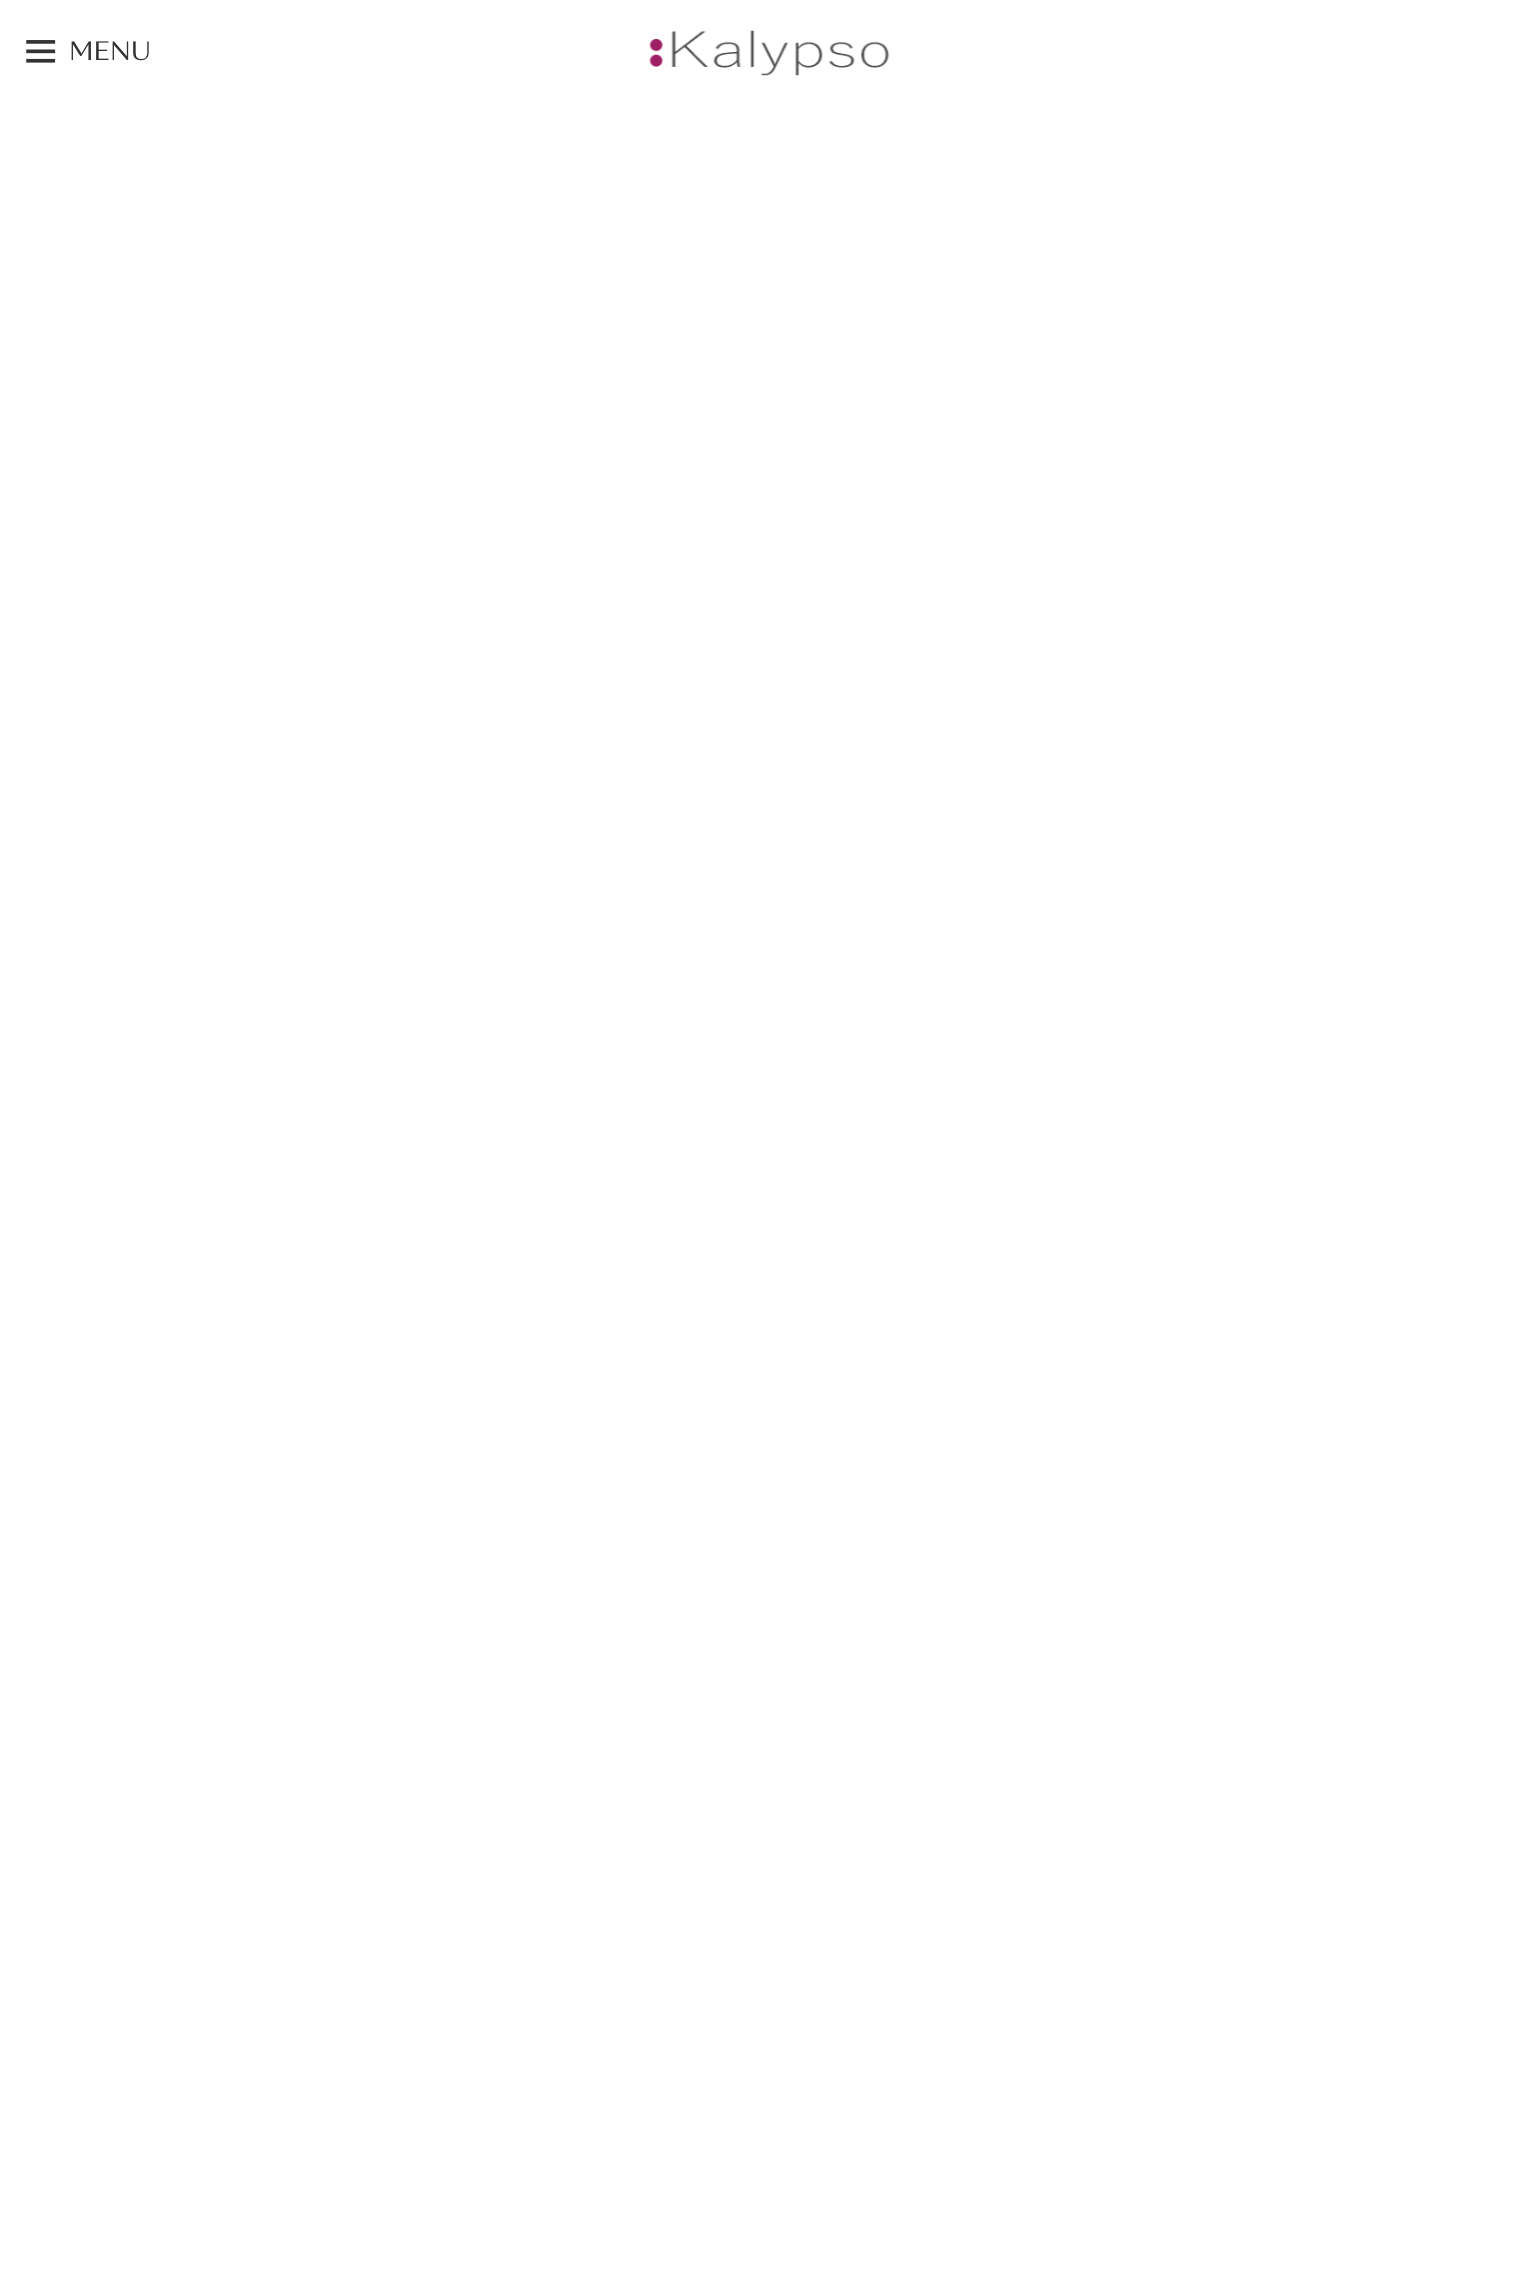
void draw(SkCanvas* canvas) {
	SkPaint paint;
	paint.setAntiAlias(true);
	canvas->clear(0xffffffff);
	canvas->drawImageRect(SkImages::DeferredFromEncodedData(SkData::MakeFromFileName("img1.png")), SkRect::MakeXYWH(26, 40, 30, 23), SkSamplingOptions());
	SkFont f1(fontMgr->matchFamilyStyle("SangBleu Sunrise", SkFontStyle::Normal()), 24.5);
	f1.setSubpixel(true);
	paint.setColor(0xff333333);
	canvas->drawString("MENU", 69, 60, f1, paint);
	canvas->drawImageRect(SkImages::DeferredFromEncodedData(SkData::MakeFromFileName("img2.png")), SkRect::MakeXYWH(649, 30, 241, 46), SkSamplingOptions());
}
